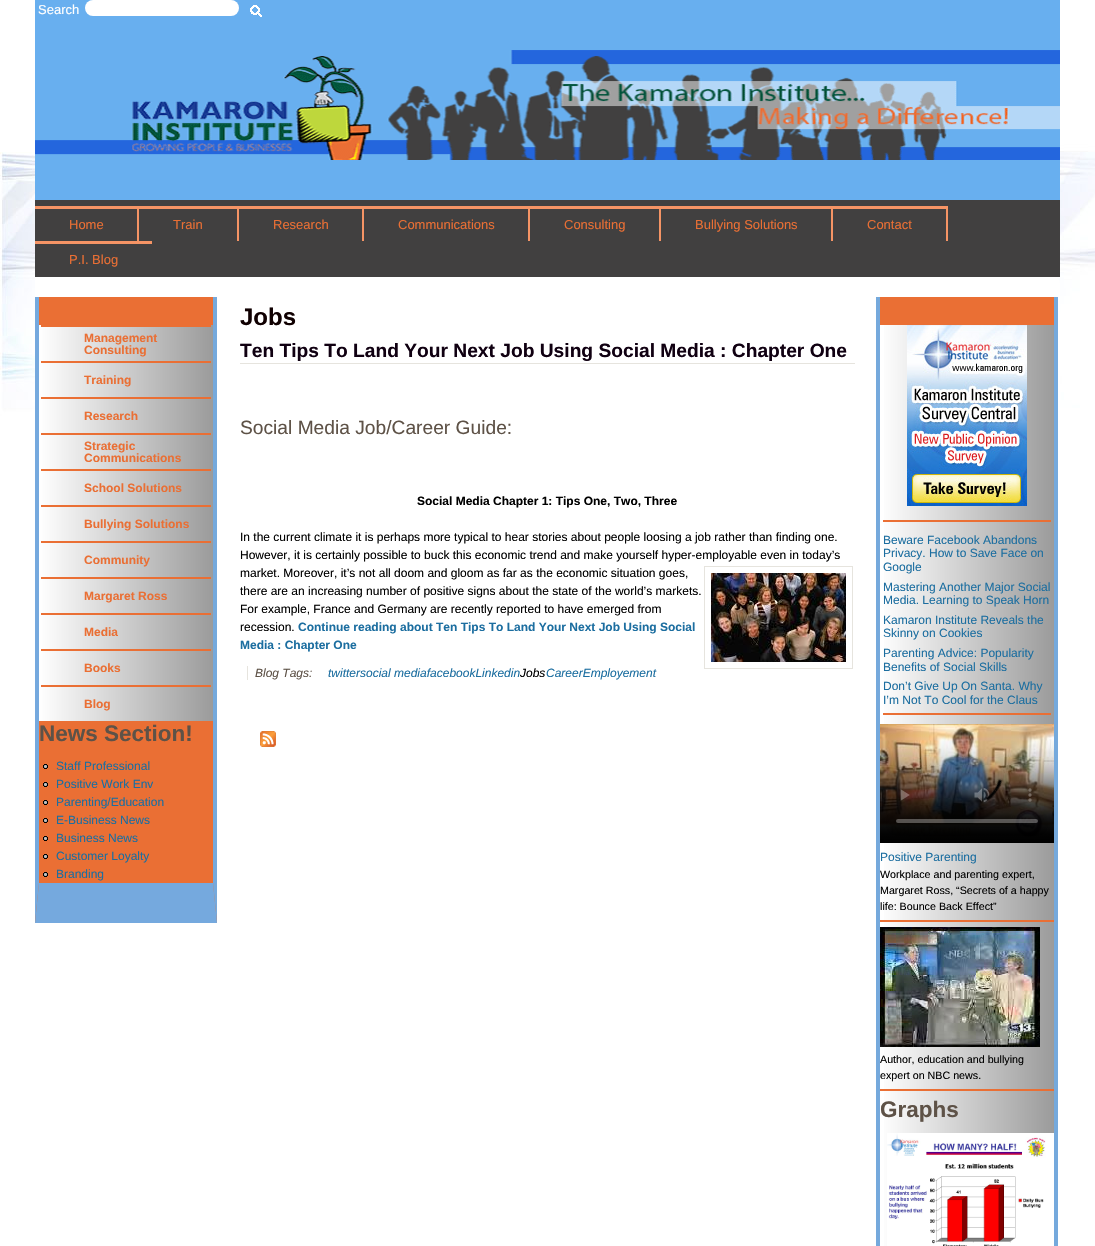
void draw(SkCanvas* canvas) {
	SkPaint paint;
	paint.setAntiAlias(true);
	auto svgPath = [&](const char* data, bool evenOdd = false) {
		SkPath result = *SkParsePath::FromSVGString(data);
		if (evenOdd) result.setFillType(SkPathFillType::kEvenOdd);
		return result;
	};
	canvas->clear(0xffffffff);
	canvas->drawImageRect(SkImages::DeferredFromEncodedData(SkData::MakeFromFileName("img1.png")), SkRect::MakeXYWH(0, 0, 1095, 1246), SkSamplingOptions());
	paint.setColor(0xff68afef);
	canvas->drawRect(SkRect::MakeXYWH(35, 0, 1025, 200), paint);
	SkFont f1(fontMgr->matchFamilyStyle("Liberation Sans", SkFontStyle::Normal()), 13);
	f1.setSubpixel(true);
	paint.setColor(0xffffffff);
	canvas->drawString("Search", 38, 14, f1, paint);
	canvas->drawRoundRect(SkRect::MakeXYWH(85, 0, 154, 16), 8, 8, paint);
	canvas->drawImageRect(SkImages::DeferredFromEncodedData(SkData::MakeFromFileName("img2.png")), SkRect::MakeXYWH(250, 5, 12, 12), SkSamplingOptions());
	canvas->drawImageRect(SkImages::DeferredFromEncodedData(SkData::MakeFromFileName("img3.png")), SkRect::MakeXYWH(35, 50, 1025, 110), SkSamplingOptions());
	paint.setColor(0xff414040);
	canvas->drawRect(SkRect::MakeXYWH(35, 200, 1025, 77), paint);
	paint.setColor(0xfff59465);
	canvas->drawRect(SkRect::MakeXYWH(35, 206, 913, 3), paint);
	canvas->drawRect(SkRect::MakeXYWH(137, 206, 2, 35), paint);
	paint.setColor(0xffea6f34);
	canvas->drawString("Home", 69, 229, f1, paint);
	paint.setColor(0xfff59465);
	canvas->drawRect(SkRect::MakeXYWH(237, 206, 2, 35), paint);
	paint.setColor(0xffea6f34);
	canvas->drawString("Train", 173, 229, f1, paint);
	paint.setColor(0xfff59465);
	canvas->drawRect(SkRect::MakeXYWH(362, 206, 2, 35), paint);
	paint.setColor(0xffea6f34);
	canvas->drawString("Research", 273, 229, f1, paint);
	paint.setColor(0xfff59465);
	canvas->drawRect(SkRect::MakeXYWH(528, 206, 2, 35), paint);
	paint.setColor(0xffea6f34);
	canvas->drawString("Communications", 398, 229, f1, paint);
	paint.setColor(0xfff59465);
	canvas->drawRect(SkRect::MakeXYWH(659, 206, 2, 35), paint);
	paint.setColor(0xffea6f34);
	canvas->drawString("Consulting", 564, 229, f1, paint);
	paint.setColor(0xfff59465);
	canvas->drawRect(SkRect::MakeXYWH(831, 206, 2, 35), paint);
	paint.setColor(0xffea6f34);
	canvas->drawString("Bullying Solutions", 695, 229, f1, paint);
	paint.setColor(0xfff59465);
	canvas->drawRect(SkRect::MakeXYWH(946, 206, 2, 35), paint);
	paint.setColor(0xffea6f34);
	canvas->drawString("Contact", 867, 229, f1, paint);
	paint.setColor(0xfff59465);
	canvas->drawRect(SkRect::MakeXYWH(35, 241, 117, 3), paint);
	paint.setColor(0xffea6f34);
	canvas->drawString("P.I. Blog", 69, 264, f1, paint);
	paint.setColor(0xffffffff);
	canvas->drawPath(svgPath("M35 277H1054C1057.5 277 1060 279.5 1060 283V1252H35Z"), paint);
	paint.setColor(0xffea6f34);
	canvas->drawRect(SkRect::MakeXYWH(35, 297, 182, 626), paint);
	paint.setColor(0xff75a9dc);
	canvas->drawPath(svgPath("M217 297V923L213 883V297Z"), paint);
	paint.setColor(0xe668afef);
	canvas->drawPath(svgPath("M217 923H35L39 883H213Z"), paint);
	canvas->drawPath(svgPath("M35 923V297H39V883Z"), paint);
	{
		const SkColor colors[] = {0xffffffff, 0xff9b9b9b};
		const float stops[] = {0, 1};
		const SkPoint ends[] = {{39, 523}, {213, 523}};
		paint.setShader(SkGradientShader::MakeLinear(ends, colors, stops, 2, SkTileMode::kClamp));
		paint.setAlpha(255);
	}
	canvas->drawRect(SkRect::MakeXYWH(39, 325, 174, 396), paint);
	paint.setShader(nullptr);
	paint.setColor(0xffea6f34);
	canvas->drawRect(SkRect::MakeXYWH(41, 325, 170, 2), paint);
	SkFont f2(fontMgr->matchFamilyStyle("Liberation Sans", SkFontStyle::Bold()), 12);
	f2.setSubpixel(true);
	canvas->drawString("Management", 84, 342, f2, paint);
	canvas->drawString("Consulting", 84, 354, f2, paint);
	canvas->drawRect(SkRect::MakeXYWH(41, 361, 170, 2), paint);
	canvas->drawString("Training", 84, 384, f2, paint);
	canvas->drawRect(SkRect::MakeXYWH(41, 397, 170, 2), paint);
	canvas->drawString("Research", 84, 420, f2, paint);
	canvas->drawRect(SkRect::MakeXYWH(41, 433, 170, 2), paint);
	canvas->drawString("Strategic", 84, 450, f2, paint);
	canvas->drawString("Communications", 84, 462, f2, paint);
	canvas->drawRect(SkRect::MakeXYWH(41, 469, 170, 2), paint);
	canvas->drawString("School Solutions", 84, 492, f2, paint);
	canvas->drawRect(SkRect::MakeXYWH(41, 505, 170, 2), paint);
	canvas->drawString("Bullying Solutions", 84, 528, f2, paint);
	canvas->drawRect(SkRect::MakeXYWH(41, 541, 170, 2), paint);
	canvas->drawString("Community", 84, 564, f2, paint);
	canvas->drawRect(SkRect::MakeXYWH(41, 577, 170, 2), paint);
	canvas->drawString("Margaret Ross", 84, 600, f2, paint);
	canvas->drawRect(SkRect::MakeXYWH(41, 613, 170, 2), paint);
	canvas->drawString("Media", 84, 636, f2, paint);
	canvas->drawRect(SkRect::MakeXYWH(41, 649, 170, 2), paint);
	canvas->drawString("Books", 84, 672, f2, paint);
	canvas->drawRect(SkRect::MakeXYWH(41, 685, 170, 2), paint);
	canvas->drawString("Blog", 84, 708, f2, paint);
	SkFont f3(fontMgr->matchFamilyStyle("Liberation Sans", SkFontStyle::Bold()), 22.5);
	f3.setSubpixel(true);
	paint.setColor(0xff5e5247);
	canvas->drawString("News Section!", 39, 741, f3, paint);
	canvas->drawImageRect(SkImages::DeferredFromEncodedData(SkData::MakeFromFileName("img4.png")), SkRect::MakeXYWH(43, 764, 5, 5), SkSamplingOptions());
	SkFont f4(fontMgr->matchFamilyStyle("Liberation Sans", SkFontStyle::Normal()), 12);
	f4.setSubpixel(true);
	paint.setColor(0xff1c6ea0);
	canvas->drawString("Staff Professional", 56, 770, f4, paint);
	canvas->drawImageRect(SkImages::DeferredFromEncodedData(SkData::MakeFromFileName("img4.png")), SkRect::MakeXYWH(43, 782, 5, 5), SkSamplingOptions());
	canvas->drawString("Positive Work Env", 56, 788, f4, paint);
	canvas->drawImageRect(SkImages::DeferredFromEncodedData(SkData::MakeFromFileName("img4.png")), SkRect::MakeXYWH(43, 800, 5, 5), SkSamplingOptions());
	canvas->drawString("Parenting/Education", 56, 806, f4, paint);
	canvas->drawImageRect(SkImages::DeferredFromEncodedData(SkData::MakeFromFileName("img4.png")), SkRect::MakeXYWH(43, 818, 5, 5), SkSamplingOptions());
	canvas->drawString("E-Business News", 56, 824, f4, paint);
	canvas->drawImageRect(SkImages::DeferredFromEncodedData(SkData::MakeFromFileName("img4.png")), SkRect::MakeXYWH(43, 836, 5, 5), SkSamplingOptions());
	canvas->drawString("Business News", 56, 842, f4, paint);
	canvas->drawImageRect(SkImages::DeferredFromEncodedData(SkData::MakeFromFileName("img4.png")), SkRect::MakeXYWH(43, 854, 5, 5), SkSamplingOptions());
	canvas->drawString("Customer Loyalty", 56, 860, f4, paint);
	canvas->drawImageRect(SkImages::DeferredFromEncodedData(SkData::MakeFromFileName("img4.png")), SkRect::MakeXYWH(43, 872, 5, 5), SkSamplingOptions());
	canvas->drawString("Branding", 56, 878, f4, paint);
	SkFont f5(fontMgr->matchFamilyStyle("Liberation Sans", SkFontStyle::Bold()), 24);
	f5.setSubpixel(true);
	paint.setColor(0xff100001);
	canvas->drawString("Jobs", 240, 325, f5, paint);
	paint.setColor(0xffe6e4de);
	canvas->drawRect(SkRect::MakeXYWH(240, 363, 615, 1), paint);
	SkFont f6(fontMgr->matchFamilyStyle("Liberation Sans", SkFontStyle::Bold()), 19.2);
	f6.setSubpixel(true);
	paint.setColor(0xff100011);
	canvas->drawString("Ten Tips To Land Your Next Job Using Social Media : Chapter One", 240, 357, f6, paint);
	SkFont f7(fontMgr->matchFamilyStyle("Liberation Sans", SkFontStyle::Normal()), 19.2);
	f7.setSubpixel(true);
	paint.setColor(0xff5e5247);
	canvas->drawString("Social Media Job/Career Guide:", 240, 434, f7, paint);
	paint.setColor(0xff000000);
	canvas->drawString("Social Media Chapter 1: Tips One, Two, Three", 417, 505, f2, paint);
	canvas->drawString("In the current climate it is perhaps more typical to hear stories about people loosing a job rather than finding one.", 240, 541, f4, paint);
	canvas->drawString("However, it is certainly possible to buck this economic trend and make yourself hyper-employable even in today’s", 240, 559, f4, paint);
	canvas->drawString("market. Moreover, it’s not all doom and gloom as far as the economic situation goes,", 240, 577, f4, paint);
	paint.setStroke(true);
	paint.setStrokeWidth(1);
	paint.setColor(0xffe6e4de);
	canvas->drawRect(SkRect::MakeXYWH(704.5, 566.5, 148, 102), paint);
	canvas->drawImageRect(SkImages::DeferredFromEncodedData(SkData::MakeFromFileName("img5.png")), SkRect::MakeXYWH(711, 573, 135, 89), SkSamplingOptions());
	paint.setStroke(false);
	paint.setColor(0xff000000);
	canvas->drawString("there are an increasing number of positive signs about the state of the world’s markets.", 240, 595, f4, paint);
	canvas->drawString("For example, France and Germany are recently reported to have emerged from", 240, 613, f4, paint);
	canvas->drawString("recession.", 240, 631, f4, paint);
	paint.setColor(0xff1c6ea0);
	canvas->drawString("Continue reading about Ten Tips To Land Your Next Job Using Social", 298, 631, f2, paint);
	canvas->drawString("Media : Chapter One", 240, 649, f2, paint);
	SkFont f8(fontMgr->matchFamilyStyle("Liberation Sans", SkFontStyle::Italic()), 12);
	f8.setSubpixel(true);
	paint.setColor(0xff5e5247);
	canvas->drawString("Blog Tags:", 255, 677, f8, paint);
	paint.setColor(0xffe6e4de);
	canvas->drawRect(SkRect::MakeXYWH(247, 666, 1, 14), paint);
	paint.setColor(0xff1c6ea0);
	canvas->drawString("twittersocial mediafacebookLinkedin", 328, 677, f8, paint);
	paint.setColor(0xff000000);
	canvas->drawString("Jobs", 520, 677, f8, paint);
	paint.setColor(0xff1c6ea0);
	canvas->drawString("CareerEmployement", 546, 677, f8, paint);
	canvas->drawImageRect(SkImages::DeferredFromEncodedData(SkData::MakeFromFileName("img6.png")), SkRect::MakeXYWH(260, 731, 16, 16), SkSamplingOptions());
	paint.setColor(0xffea6f34);
	canvas->drawRect(SkRect::MakeXYWH(880, 297, 174, 28), paint);
	paint.setColor(0xff75a9dc);
	canvas->drawPath(svgPath("M1058 297V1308L1054 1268V297Z"), paint);
	canvas->drawPath(svgPath("M876 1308V297H880V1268Z"), paint);
	{
		const SkColor colors[] = {0xffffffff, 0xff9b9b9b};
		const float stops[] = {0, 1};
		const SkPoint ends[] = {{880, 797}, {1054, 797}};
		paint.setShader(SkGradientShader::MakeLinear(ends, colors, stops, 2, SkTileMode::kClamp));
		paint.setAlpha(255);
	}
	canvas->drawRect(SkRect::MakeXYWH(884, 325, 170, 921), paint);
	canvas->drawImageRect(SkImages::DeferredFromEncodedData(SkData::MakeFromFileName("img7.png")), SkRect::MakeXYWH(907, 325, 120, 181), SkSamplingOptions());
	paint.setShader(nullptr);
	paint.setColor(0xffea6f34);
	canvas->drawRect(SkRect::MakeXYWH(883, 520, 168, 2), paint);
	paint.setColor(0xff1c6ea0);
	canvas->drawString("Beware Facebook Abandons", 883, 544, f4, paint);
	canvas->drawString("Privacy. How to Save Face on", 883, 557, f4, paint);
	canvas->drawString("Google", 883, 571, f4, paint);
	canvas->drawString("Mastering Another Major Social", 883, 591, f4, paint);
	canvas->drawString("Media. Learning to Speak Horn", 883, 604, f4, paint);
	canvas->drawString("Kamaron Institute Reveals the", 883, 624, f4, paint);
	canvas->drawString("Skinny on Cookies", 883, 637, f4, paint);
	canvas->drawString("Parenting Advice: Popularity", 883, 657, f4, paint);
	canvas->drawString("Benefits of Social Skills", 883, 671, f4, paint);
	canvas->drawString("Don’t Give Up On Santa. Why", 883, 690, f4, paint);
	canvas->drawString("I’m Not To Cool for the Claus", 883, 704, f4, paint);
	paint.setColor(0xffea6f34);
	canvas->drawRect(SkRect::MakeXYWH(883, 713, 168, 2), paint);
	canvas->drawImageRect(SkImages::DeferredFromEncodedData(SkData::MakeFromFileName("img8.png")), SkRect::MakeXYWH(880, 724, 174, 119), SkSamplingOptions());
	paint.setColor(0xff1c6ea0);
	canvas->drawString("Positive Parenting", 880, 861, f4, paint);
	SkFont f9(fontMgr->matchFamilyStyle("Liberation Sans", SkFontStyle::Normal()), 10.7);
	f9.setSubpixel(true);
	paint.setColor(0xff000000);
	canvas->drawString("Workplace and parenting expert,", 880, 878, f9, paint);
	canvas->drawString("Margaret Ross, “Secrets of a happy", 880, 894, f9, paint);
	canvas->drawString("life: Bounce Back Effect”", 880, 910, f9, paint);
	paint.setColor(0xffea6f34);
	canvas->drawRect(SkRect::MakeXYWH(880, 920, 174, 2), paint);
	canvas->drawImageRect(SkImages::DeferredFromEncodedData(SkData::MakeFromFileName("img9.png")), SkRect::MakeXYWH(880, 927, 160, 120), SkSamplingOptions());
	paint.setColor(0xff000000);
	canvas->drawString("Author, education and bullying", 880, 1063, f9, paint);
	canvas->drawString("expert on NBC news.", 880, 1079, f9, paint);
	paint.setColor(0xffea6f34);
	canvas->drawRect(SkRect::MakeXYWH(880, 1089, 174, 2), paint);
	paint.setColor(0xff5e5247);
	canvas->drawString("Graphs", 880, 1117, f3, paint);
	canvas->drawImageRect(SkImages::DeferredFromEncodedData(SkData::MakeFromFileName("img10.png")), SkRect::MakeXYWH(887, 1133, 167, 113), SkSamplingOptions());
}
